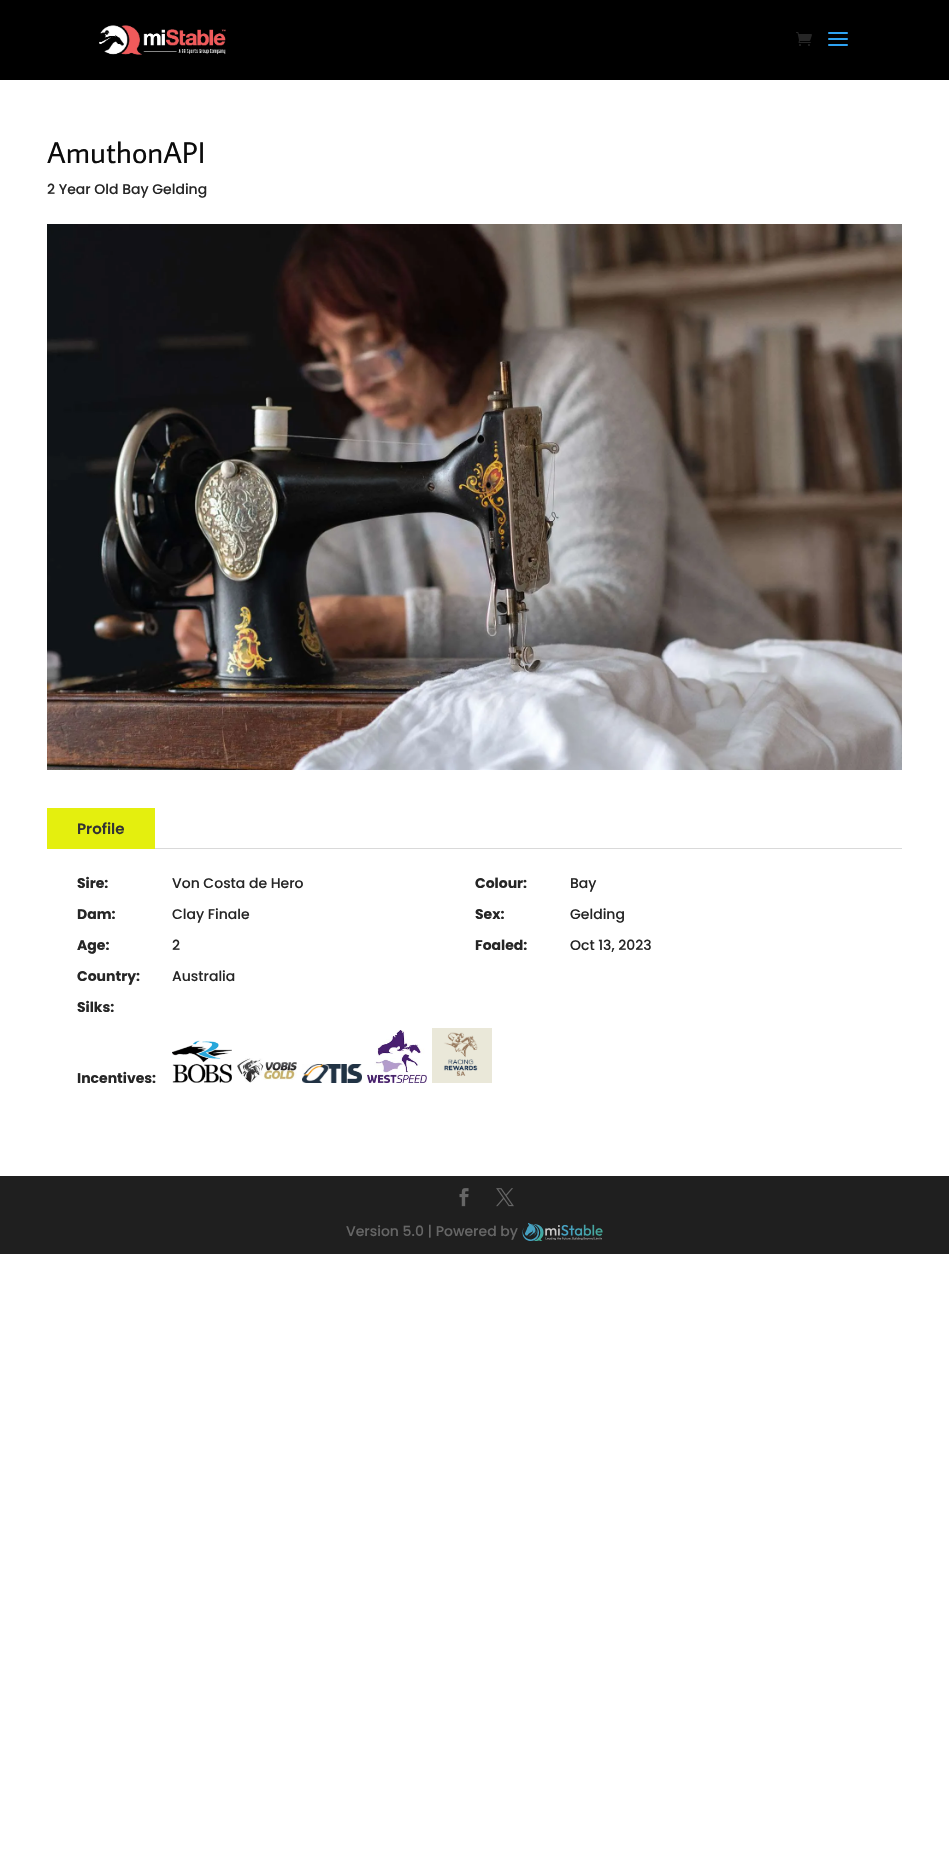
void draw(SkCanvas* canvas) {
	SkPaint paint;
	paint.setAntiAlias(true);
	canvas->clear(0xffffffff);
	paint.setColor(0xff000000);
	canvas->drawRect(SkRect::MakeXYWH(0, 0, 949, 80), paint);
	canvas->drawImageRect(SkImages::DeferredFromEncodedData(SkData::MakeFromFileName("img1.png")), SkRect::MakeXYWH(99, 25, 127, 30), SkSamplingOptions());
	canvas->drawImageRect(SkImages::DeferredFromEncodedData(SkData::MakeFromFileName("img2.png")), SkRect::MakeXYWH(796, 32, 16, 14), SkSamplingOptions());
	canvas->drawImageRect(SkImages::DeferredFromEncodedData(SkData::MakeFromFileName("img3.png")), SkRect::MakeXYWH(828, 32, 20, 14), SkSamplingOptions());
	SkFont f1(fontMgr->matchFamilyStyle("Average Sans", SkFontStyle::Normal()), 30);
	f1.setSubpixel(true);
	paint.setColor(0xff0c0c0c);
	canvas->drawString("AmuthonAPI", 47, 163, f1, paint);
	SkFont f2(fontMgr->matchFamilyStyle("Poppins", SkFontStyle(500, SkFontStyle::kNormal_Width, SkFontStyle::kUpright_Slant)), 14);
	f2.setSubpixel(true);
	paint.setColor(0xff262626);
	canvas->drawString("2 Year Old Bay Gelding", 47, 194, f2, paint);
	canvas->drawImageRect(SkImages::DeferredFromEncodedData(SkData::MakeFromFileName("img4.png")), SkRect::MakeXYWH(47, 224, 855, 546), SkSamplingOptions());
	paint.setColor(0xffe4ef0e);
	canvas->drawRect(SkRect::MakeXYWH(47, 808, 108, 41), paint);
	SkFont f3(fontMgr->matchFamilyStyle("Poppins", SkFontStyle(600, SkFontStyle::kNormal_Width, SkFontStyle::kUpright_Slant)), 15);
	f3.setSubpixel(true);
	paint.setColor(0xff333333);
	canvas->drawString("Profile", 77, 834, f3, paint);
	paint.setColor(0xffd9d9d9);
	canvas->drawRect(SkRect::MakeXYWH(155, 848, 747, 1), paint);
	SkFont f4(fontMgr->matchFamilyStyle("Poppins", SkFontStyle::Bold()), 14);
	f4.setSubpixel(true);
	paint.setColor(0xff262626);
	canvas->drawString("Sire:", 77, 888, f4, paint);
	canvas->drawString("Von Costa de Hero", 172, 888, f2, paint);
	canvas->drawString("Colour:", 475, 888, f4, paint);
	canvas->drawString("Bay", 570, 888, f2, paint);
	canvas->drawString("Dam:", 77, 919, f4, paint);
	canvas->drawString("Clay Finale", 172, 919, f2, paint);
	canvas->drawString("Sex:", 475, 919, f4, paint);
	canvas->drawString("Gelding", 570, 919, f2, paint);
	canvas->drawString("Age:", 77, 950, f4, paint);
	canvas->drawString("2", 172, 950, f2, paint);
	canvas->drawString("Foaled:", 475, 950, f4, paint);
	canvas->drawString("Oct 13, 2023", 570, 950, f2, paint);
	canvas->drawString("Country:", 77, 981, f4, paint);
	canvas->drawString("Australia", 172, 981, f2, paint);
	canvas->drawString("Silks:", 77, 1012, f4, paint);
	canvas->drawString("Incentives:", 77, 1083, f4, paint);
	canvas->drawImageRect(SkImages::DeferredFromEncodedData(SkData::MakeFromFileName("img5.png")), SkRect::MakeXYWH(172, 1040, 60, 43), SkSamplingOptions());
	canvas->drawImageRect(SkImages::DeferredFromEncodedData(SkData::MakeFromFileName("img6.png")), SkRect::MakeXYWH(237, 1058, 60, 25), SkSamplingOptions());
	canvas->drawImageRect(SkImages::DeferredFromEncodedData(SkData::MakeFromFileName("img7.png")), SkRect::MakeXYWH(302, 1064, 60, 19), SkSamplingOptions());
	canvas->drawImageRect(SkImages::DeferredFromEncodedData(SkData::MakeFromFileName("img8.png")), SkRect::MakeXYWH(367, 1030, 60, 53), SkSamplingOptions());
	canvas->drawImageRect(SkImages::DeferredFromEncodedData(SkData::MakeFromFileName("img9.png")), SkRect::MakeXYWH(432, 1028, 60, 55), SkSamplingOptions());
	paint.setColor(0xff1f1f1f);
	canvas->drawRect(SkRect::MakeXYWH(0, 1176, 949, 78), paint);
	canvas->drawImageRect(SkImages::DeferredFromEncodedData(SkData::MakeFromFileName("img10.png")), SkRect::MakeXYWH(459, 1188, 10, 19), SkSamplingOptions());
	canvas->drawImageRect(SkImages::DeferredFromEncodedData(SkData::MakeFromFileName("img11.png")), SkRect::MakeXYWH(496, 1188, 18, 19), SkSamplingOptions());
	paint.setColor(0xff666666);
	canvas->drawString("Version 5.0 | Powered by", 346, 1236, f2, paint);
	canvas->drawImageRect(SkImages::DeferredFromEncodedData(SkData::MakeFromFileName("img12.png")), SkRect::MakeXYWH(522, 1223, 81, 18), SkSamplingOptions());
}
